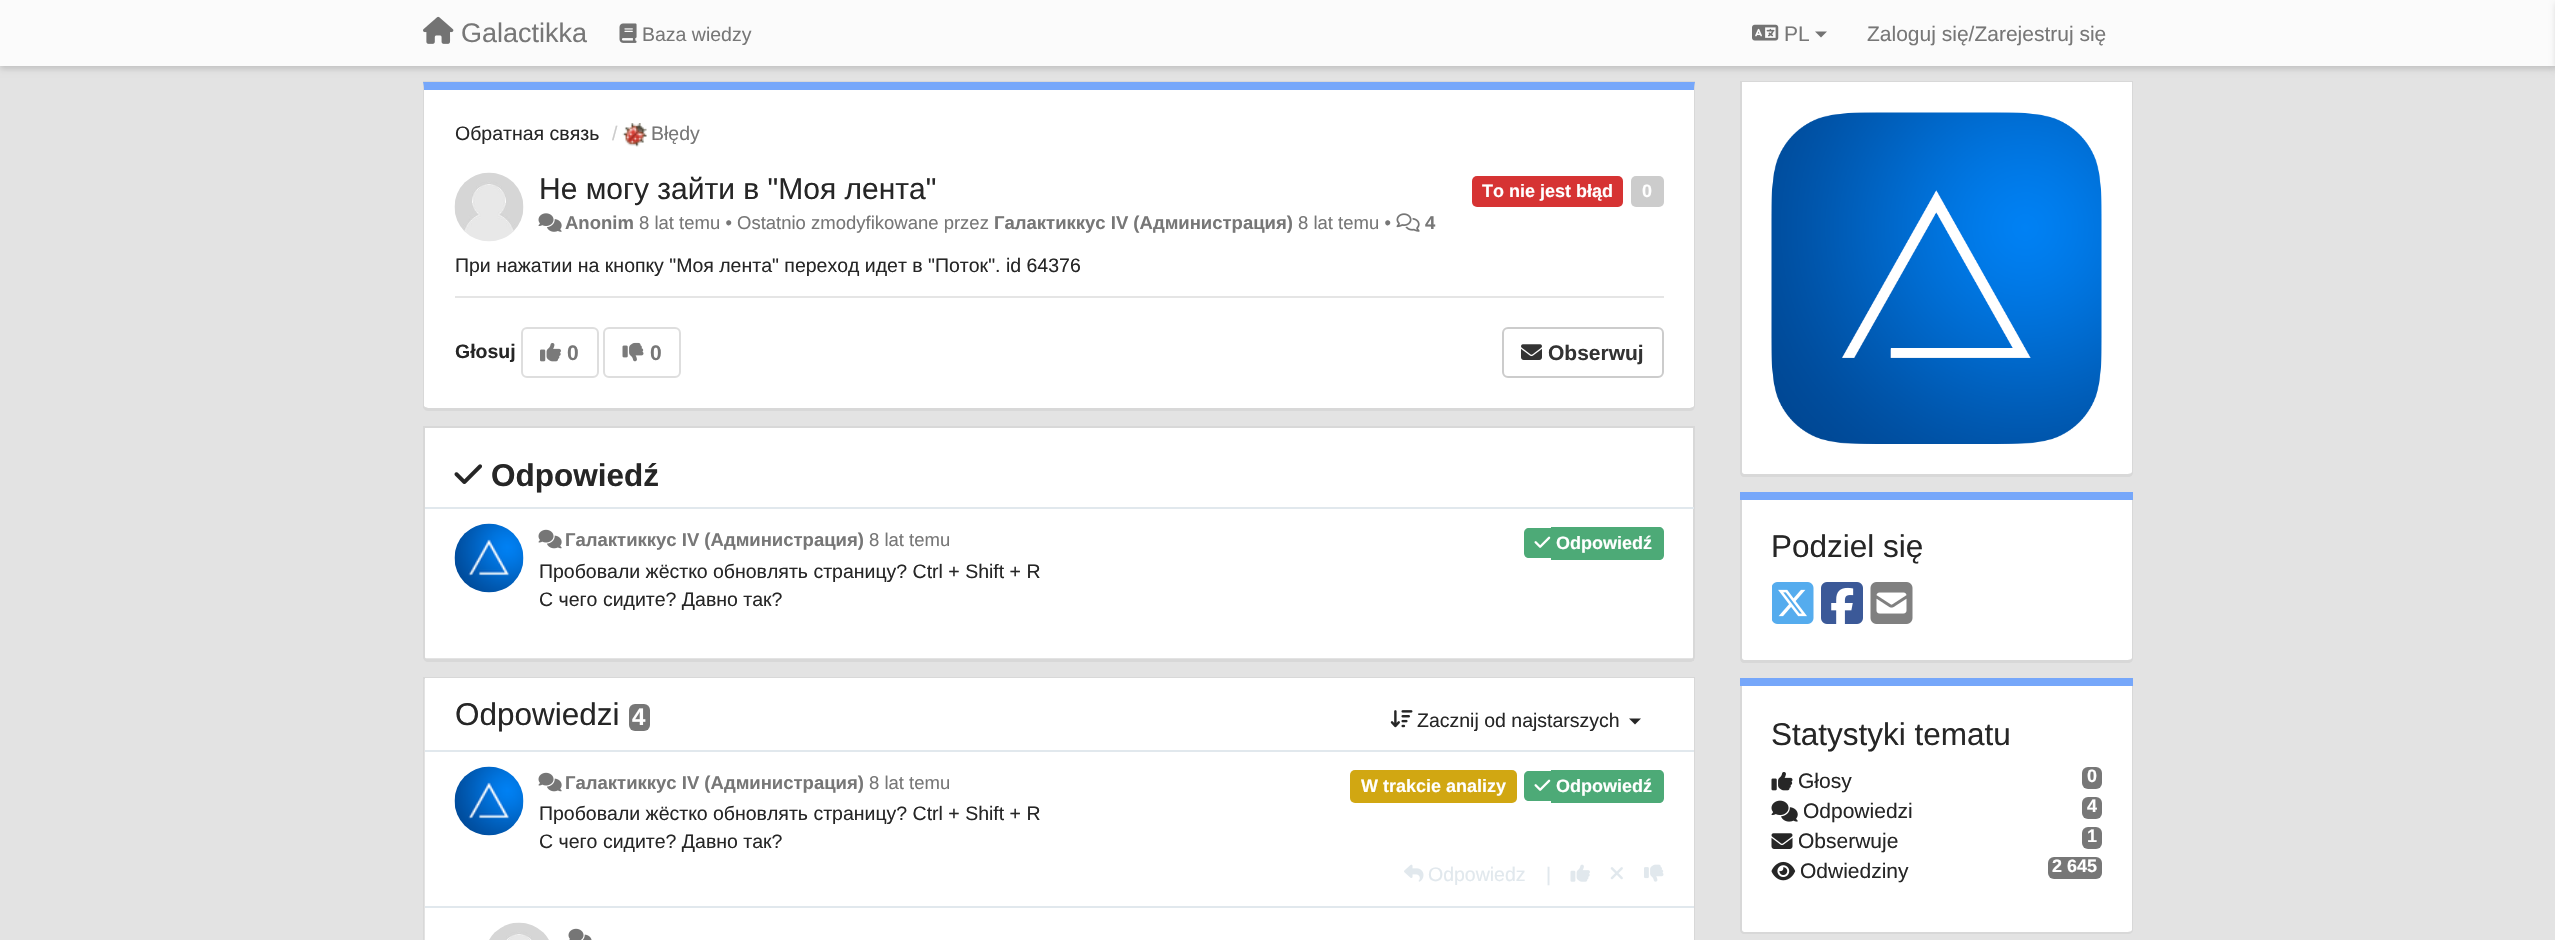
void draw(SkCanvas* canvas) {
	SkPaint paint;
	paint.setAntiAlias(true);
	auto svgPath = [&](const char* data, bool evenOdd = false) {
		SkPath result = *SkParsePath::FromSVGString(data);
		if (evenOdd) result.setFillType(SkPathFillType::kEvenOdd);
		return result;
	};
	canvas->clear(0xffe3e3e3);
	paint.setColor(0x26000000);
	paint.setMaskFilter(SkMaskFilter::MakeBlur(kNormal_SkBlurStyle, 3));
	canvas->drawRect(SkRect::MakeXYWH(0, 3, 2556, 66), paint);
	paint.setMaskFilter(nullptr);
	paint.setColor(0xfffbfbfb);
	canvas->drawRect(SkRect::MakeXYWH(0, 0, 2555, 66), paint);
	canvas->drawImageRect(SkImages::DeferredFromEncodedData(SkData::MakeFromFileName("img1.png")), SkRect::MakeXYWH(423, 16, 31, 28), SkSamplingOptions());
	SkFont f1(fontMgr->matchFamilyStyle("Liberation Sans", SkFontStyle::Normal()), 27);
	f1.setSubpixel(true);
	paint.setColor(0xff777777);
	canvas->drawString("Galactikka", 461, 42, f1, paint);
	canvas->drawImageRect(SkImages::DeferredFromEncodedData(SkData::MakeFromFileName("img2.png")), SkRect::MakeXYWH(619, 23, 18, 20), SkSamplingOptions());
	SkFont f2(fontMgr->matchFamilyStyle("Liberation Sans", SkFontStyle::Normal()), 19.5);
	f2.setSubpixel(true);
	canvas->drawString("Baza wiedzy", 642, 41, f2, paint);
	canvas->drawImageRect(SkImages::DeferredFromEncodedData(SkData::MakeFromFileName("img3.png")), SkRect::MakeXYWH(1752, 24, 27, 17), SkSamplingOptions());
	SkFont f3(fontMgr->matchFamilyStyle("Liberation Sans", SkFontStyle::Normal()), 21);
	f3.setSubpixel(true);
	canvas->drawString("PL", 1784, 41, f3, paint);
	paint.setColor(0xff737373);
	canvas->drawPath(svgPath("M1815 31.5H1827L1821 37.5Z"), paint);
	paint.setColor(0xff777777);
	canvas->drawString("Zaloguj się/Zarejestruj się", 1867, 41, f3, paint);
	paint.setColor(0x26000000);
	paint.setMaskFilter(SkMaskFilter::MakeBlur(kNormal_SkBlurStyle, 3));
	canvas->drawRect(SkRect::MakeXYWH(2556, 3, 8, 66), paint);
	paint.setMaskFilter(nullptr);
	paint.setColor(0xffd8d8d8);
	canvas->drawRect(SkRect::MakeXYWH(423, 81, 1272, 2), paint);
	paint.setColor(0xffffffff);
	canvas->drawPath(svgPath("M424 90H1694V406C1694 407 1692 408 1690 408H428C426 408 424 407 424 406Z"), paint);
	paint.setColor(0xff76a7fa);
	canvas->drawPath(svgPath("M423 82L424 90H1694L1695 82Z"), paint);
	paint.setColor(0xffd8d8d8);
	canvas->drawPath(svgPath("M1695 82L1694 90V406L1693 407L1694 409L1695 406Z"), paint);
	canvas->drawPath(svgPath("M428 411H1690C1692 411 1693 410 1694 409L1693 407L1690 408H428L425 407L424 409C425 410 426 411 428 411Z"), paint);
	canvas->drawPath(svgPath("M424 90L423 82V406C423 407 423 408 424 409L425 407L424 406Z"), paint);
	paint.setColor(0xff262626);
	canvas->drawString("Обратная связь", 455, 140, f2, paint);
	paint.setColor(0xffcccccc);
	canvas->drawString("/", 612, 140, f2, paint);
	canvas->drawImageRect(SkImages::DeferredFromEncodedData(SkData::MakeFromFileName("img4.png")), SkRect::MakeXYWH(622, 123, 25, 24), SkSamplingOptions());
	paint.setColor(0xff777777);
	canvas->drawString("Błędy", 651, 140, f2, paint);
	canvas->drawImageRect(SkImages::DeferredFromEncodedData(SkData::MakeFromFileName("img5.png")), SkRect::MakeXYWH(454, 172, 70, 70), SkSamplingOptions());
	SkFont f4(fontMgr->matchFamilyStyle("Liberation Sans", SkFontStyle::Normal()), 30);
	f4.setSubpixel(true);
	paint.setColor(0xff262626);
	canvas->drawString("Не могу зайти в \"Моя лента\"", 539, 199, f4, paint);
	paint.setColor(0xffd63333);
	canvas->drawRoundRect(SkRect::MakeXYWH(1472, 176, 151, 31), 5, 5, paint);
	SkFont f5(fontMgr->matchFamilyStyle("Liberation Sans", SkFontStyle::Bold()), 18);
	f5.setSubpixel(true);
	paint.setColor(0xffffffff);
	canvas->drawString("To nie jest błąd", 1482, 197, f5, paint);
	paint.setColor(0xffcccccc);
	canvas->drawRoundRect(SkRect::MakeXYWH(1631, 176, 33, 31), 5, 5, paint);
	paint.setColor(0xffffffff);
	canvas->drawString("0", 1642, 197, f5, paint);
	canvas->drawImageRect(SkImages::DeferredFromEncodedData(SkData::MakeFromFileName("img6.png")), SkRect::MakeXYWH(538, 213, 24, 19), SkSamplingOptions());
	SkFont f6(fontMgr->matchFamilyStyle("Liberation Sans", SkFontStyle::Bold()), 18.5);
	f6.setSubpixel(true);
	paint.setColor(0xff777777);
	canvas->drawString("Anonim", 565, 229, f6, paint);
	SkFont f7(fontMgr->matchFamilyStyle("Liberation Sans", SkFontStyle::Normal()), 18.5);
	f7.setSubpixel(true);
	canvas->drawString("8 lat temu • Ostatnio zmodyfikowane przez", 639, 229, f7, paint);
	canvas->drawString("Галактиккус IV (Администрация)", 994, 229, f6, paint);
	canvas->drawString("8 lat temu •", 1298, 229, f7, paint);
	canvas->drawImageRect(SkImages::DeferredFromEncodedData(SkData::MakeFromFileName("img7.png")), SkRect::MakeXYWH(1396, 213, 24, 19), SkSamplingOptions());
	canvas->drawString("4", 1425, 229, f6, paint);
	paint.setColor(0xff262626);
	canvas->drawString("При нажатии на кнопку \"Моя лента\" переход идет в \"Поток\". id 64376", 455, 272, f2, paint);
	paint.setColor(0xffe5e5e5);
	canvas->drawRect(SkRect::MakeXYWH(455, 296, 1209, 2), paint);
	SkFont f8(fontMgr->matchFamilyStyle("Liberation Sans", SkFontStyle::Bold()), 19.5);
	f8.setSubpixel(true);
	paint.setColor(0xff262626);
	canvas->drawString("Głosuj", 455, 358, f8, paint);
	paint.setStroke(true);
	paint.setStrokeWidth(2);
	paint.setColor(0xffdedede);
	canvas->drawRoundRect(SkRect::MakeXYWH(522, 328, 76, 49), 5, 5, paint);
	canvas->drawImageRect(SkImages::DeferredFromEncodedData(SkData::MakeFromFileName("img8.png")), SkRect::MakeXYWH(540, 343, 21, 19), SkSamplingOptions());
	SkFont f9(fontMgr->matchFamilyStyle("Liberation Sans", SkFontStyle::Bold()), 21);
	f9.setSubpixel(true);
	paint.setStroke(false);
	paint.setColor(0xff777777);
	canvas->drawString("0", 567, 360, f9, paint);
	paint.setStroke(true);
	paint.setColor(0xffdedede);
	canvas->drawRoundRect(SkRect::MakeXYWH(604, 328, 76, 49), 5, 5, paint);
	canvas->drawImageRect(SkImages::DeferredFromEncodedData(SkData::MakeFromFileName("img9.png")), SkRect::MakeXYWH(622, 342, 22, 20), SkSamplingOptions());
	paint.setStroke(false);
	paint.setColor(0xff777777);
	canvas->drawString("0", 650, 360, f9, paint);
	paint.setStroke(true);
	paint.setColor(0xffcccccc);
	canvas->drawRoundRect(SkRect::MakeXYWH(1503, 328, 160, 49), 5, 5, paint);
	canvas->drawImageRect(SkImages::DeferredFromEncodedData(SkData::MakeFromFileName("img10.png")), SkRect::MakeXYWH(1521, 344, 21, 16), SkSamplingOptions());
	paint.setStroke(false);
	paint.setColor(0xff333333);
	canvas->drawString("Obserwuj", 1548, 360, f9, paint);
	paint.setColor(0xffffffff);
	canvas->drawPath(svgPath("M424 428H1694V657C1694 658 1692 658 1690 658H428C426 658 424 658 424 657Z"), paint);
	paint.setStroke(true);
	paint.setColor(0xffd8d8d8);
	canvas->drawPath(svgPath("M424 427H1694V657C1694 659 1692 661 1690 661H428C426 661 424 659 424 657Z"), paint);
	paint.setStroke(false);
	canvas->drawRect(SkRect::MakeXYWH(426, 659, 1268, 2), paint);
	canvas->drawImageRect(SkImages::DeferredFromEncodedData(SkData::MakeFromFileName("img11.png")), SkRect::MakeXYWH(454, 464, 28, 20), SkSamplingOptions());
	SkFont f10(fontMgr->matchFamilyStyle("Liberation Sans", SkFontStyle::Bold()), 31.5);
	f10.setSubpixel(true);
	paint.setColor(0xff262626);
	canvas->drawString("Odpowiedź", 491, 486, f10, paint);
	paint.setColor(0xffe1e8ed);
	canvas->drawRect(SkRect::MakeXYWH(425, 507, 1269, 2), paint);
	canvas->drawImageRect(SkImages::DeferredFromEncodedData(SkData::MakeFromFileName("img12.png")), SkRect::MakeXYWH(454, 523, 70, 70), SkSamplingOptions());
	canvas->drawImageRect(SkImages::DeferredFromEncodedData(SkData::MakeFromFileName("img13.png")), SkRect::MakeXYWH(538, 529, 24, 20), SkSamplingOptions());
	paint.setColor(0xff777777);
	canvas->drawString("Галактиккус IV (Администрация)", 565, 546, f6, paint);
	canvas->drawString("8 lat temu", 869, 546, f7, paint);
	paint.setColor(0xff4daa77);
	canvas->drawPath(svgPath("M1529 528H1551V558H1529C1526 558 1524 556 1524 553V533C1524 530 1526 528 1529 528Z"), paint);
	canvas->drawPath(svgPath("M1551 527H1659C1662 527 1664 529 1664 532V555C1664 558 1662 560 1659 560H1551Z"), paint);
	canvas->drawImageRect(SkImages::DeferredFromEncodedData(SkData::MakeFromFileName("img14.png")), SkRect::MakeXYWH(1534, 536, 17, 12), SkSamplingOptions());
	paint.setColor(0xffffffff);
	canvas->drawString("Odpowiedź", 1556, 549, f5, paint);
	paint.setColor(0xff262626);
	canvas->drawString("Пробовали жёстко обновлять страницу? Ctrl + Shift + R", 539, 578, f2, paint);
	canvas->drawString("С чего сидите? Давно так?", 539, 606, f2, paint);
	paint.setColor(0xffd8d8d8);
	canvas->drawRect(SkRect::MakeXYWH(423, 677, 1272, 2), paint);
	paint.setColor(0xffffffff);
	canvas->drawRect(SkRect::MakeXYWH(425, 678, 1269, 262), paint);
	paint.setColor(0xffd8d8d8);
	canvas->drawPath(svgPath("M423 678H1695V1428C1695 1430 1693 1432 1690 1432H428C425 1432 423 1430 423 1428ZM424 678H1694V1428C1694 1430 1692 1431 1690 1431H428C426 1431 424 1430 424 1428Z", true), paint);
	SkFont f11(fontMgr->matchFamilyStyle("Liberation Sans", SkFontStyle::Normal()), 31.5);
	f11.setSubpixel(true);
	paint.setColor(0xff262626);
	canvas->drawString("Odpowiedzi", 455, 725, f11, paint);
	paint.setColor(0xff777777);
	canvas->drawRoundRect(SkRect::MakeXYWH(629, 704, 21, 27), 6, 6, paint);
	SkFont f12(fontMgr->matchFamilyStyle("Liberation Sans", SkFontStyle::Bold()), 24);
	f12.setSubpixel(true);
	paint.setColor(0xffffffff);
	canvas->drawString("4", 632, 725, f12, paint);
	canvas->drawImageRect(SkImages::DeferredFromEncodedData(SkData::MakeFromFileName("img15.png")), SkRect::MakeXYWH(1390, 710, 23, 18), SkSamplingOptions());
	paint.setColor(0xff262626);
	canvas->drawString("Zacznij od najstarszych", 1417, 727, f2, paint);
	canvas->drawPath(svgPath("M1629 718.5H1641L1635 724.5Z"), paint);
	paint.setColor(0xffe1e8ed);
	canvas->drawRect(SkRect::MakeXYWH(425, 750, 1269, 2), paint);
	canvas->drawRect(SkRect::MakeXYWH(425, 906, 1269, 2), paint);
	canvas->drawImageRect(SkImages::DeferredFromEncodedData(SkData::MakeFromFileName("img12.png")), SkRect::MakeXYWH(454, 766, 70, 70), SkSamplingOptions());
	canvas->drawImageRect(SkImages::DeferredFromEncodedData(SkData::MakeFromFileName("img13.png")), SkRect::MakeXYWH(538, 772, 24, 20), SkSamplingOptions());
	paint.setColor(0xff777777);
	canvas->drawString("Галактиккус IV (Администрация)", 565, 789, f6, paint);
	canvas->drawString("8 lat temu", 869, 789, f7, paint);
	paint.setColor(0xffd1a712);
	canvas->drawRoundRect(SkRect::MakeXYWH(1350, 770, 167, 33), 5, 5, paint);
	paint.setColor(0xffffffff);
	canvas->drawString("W trakcie analizy", 1361, 792, f5, paint);
	paint.setColor(0xff4daa77);
	canvas->drawPath(svgPath("M1529 771H1551V801H1529C1526 801 1524 799 1524 796V776C1524 773 1526 771 1529 771Z"), paint);
	canvas->drawPath(svgPath("M1551 770H1659C1662 770 1664 772 1664 775V798C1664 801 1662 803 1659 803H1551Z"), paint);
	canvas->drawImageRect(SkImages::DeferredFromEncodedData(SkData::MakeFromFileName("img14.png")), SkRect::MakeXYWH(1534, 779, 17, 12), SkSamplingOptions());
	paint.setColor(0xffffffff);
	canvas->drawString("Odpowiedź", 1556, 792, f5, paint);
	paint.setColor(0xff262626);
	canvas->drawString("Пробовали жёстко обновлять страницу? Ctrl + Shift + R", 539, 820, f2, paint);
	canvas->drawString("С чего сидите? Давно так?", 539, 848, f2, paint);
	canvas->drawImageRect(SkImages::DeferredFromEncodedData(SkData::MakeFromFileName("img16.png")), SkRect::MakeXYWH(1404, 864, 20, 18), SkSamplingOptions());
	paint.setColor(0xffe1e8ed);
	canvas->drawString("Odpowiedz", 1428, 881, f2, paint);
	canvas->drawString("|", 1546, 881, f2, paint);
	canvas->drawImageRect(SkImages::DeferredFromEncodedData(SkData::MakeFromFileName("img17.png")), SkRect::MakeXYWH(1570, 864, 20, 18), SkSamplingOptions());
	canvas->drawImageRect(SkImages::DeferredFromEncodedData(SkData::MakeFromFileName("img18.png")), SkRect::MakeXYWH(1610, 867, 13, 13), SkSamplingOptions());
	canvas->drawImageRect(SkImages::DeferredFromEncodedData(SkData::MakeFromFileName("img19.png")), SkRect::MakeXYWH(1644, 864, 20, 18), SkSamplingOptions());
	canvas->drawImageRect(SkImages::DeferredFromEncodedData(SkData::MakeFromFileName("img20.png")), SkRect::MakeXYWH(489, 922, 60, 18), SkSamplingOptions());
	canvas->drawImageRect(SkImages::DeferredFromEncodedData(SkData::MakeFromFileName("img21.png")), SkRect::MakeXYWH(568, 928, 24, 12), SkSamplingOptions());
	paint.setColor(0xffd8d8d8);
	canvas->drawRect(SkRect::MakeXYWH(1740, 81, 393, 1), paint);
	paint.setColor(0xffffffff);
	canvas->drawPath(svgPath("M1742 82H2132V472C2132 473 2130 474 2128 474H1744C1743 474 1742 473 1742 472Z"), paint);
	paint.setColor(0xffd8d8d8);
	canvas->drawPath(svgPath("M1740 82H2133V472C2133 475 2131 477 2128 477H1744C1742 477 1740 475 1740 472ZM1742 82H2132V472C2132 473 2130 474 2128 474H1744C1743 474 1742 473 1742 472Z", true), paint);
	canvas->drawImageRect(SkImages::DeferredFromEncodedData(SkData::MakeFromFileName("img22.png")), SkRect::MakeXYWH(1771, 112, 331, 332), SkSamplingOptions());
	paint.setColor(0xff76a7fa);
	canvas->drawRect(SkRect::MakeXYWH(1740, 492, 393, 8), paint);
	paint.setColor(0xffffffff);
	canvas->drawPath(svgPath("M1742 500H2132V658C2132 659 2130 660 2128 660H1744C1743 660 1742 659 1742 658Z"), paint);
	paint.setColor(0xffd8d8d8);
	canvas->drawPath(svgPath("M1740 500H2133V658C2133 661 2131 663 2128 663H1744C1742 663 1740 661 1740 658ZM1742 500H2132V658C2132 659 2130 660 2128 660H1744C1743 660 1742 659 1742 658Z", true), paint);
	paint.setColor(0xff262626);
	canvas->drawString("Podziel się", 1771, 557, f11, paint);
	canvas->drawImageRect(SkImages::DeferredFromEncodedData(SkData::MakeFromFileName("img23.png")), SkRect::MakeXYWH(1772, 582, 42, 42), SkSamplingOptions());
	canvas->drawImageRect(SkImages::DeferredFromEncodedData(SkData::MakeFromFileName("img24.png")), SkRect::MakeXYWH(1821, 582, 42, 42), SkSamplingOptions());
	canvas->drawImageRect(SkImages::DeferredFromEncodedData(SkData::MakeFromFileName("img25.png")), SkRect::MakeXYWH(1870, 582, 43, 42), SkSamplingOptions());
	paint.setColor(0xff76a7fa);
	canvas->drawRect(SkRect::MakeXYWH(1740, 678, 393, 8), paint);
	paint.setColor(0xffffffff);
	canvas->drawPath(svgPath("M1742 686H2132V930C2132 931 2130 932 2128 932H1744C1743 932 1742 931 1742 930Z"), paint);
	paint.setColor(0xffd8d8d8);
	canvas->drawPath(svgPath("M1740 686H2133V930C2133 932 2131 934 2128 934H1744C1742 934 1740 932 1740 930ZM1742 686H2132V930C2132 931 2130 932 2128 932H1744C1743 932 1742 931 1742 930Z", true), paint);
	paint.setColor(0xff262626);
	canvas->drawString("Statystyki tematu", 1771, 745, f11, paint);
	canvas->drawImageRect(SkImages::DeferredFromEncodedData(SkData::MakeFromFileName("img26.png")), SkRect::MakeXYWH(1771, 772, 22, 19), SkSamplingOptions());
	canvas->drawString("Głosy", 1798, 788, f3, paint);
	paint.setColor(0xff777777);
	canvas->drawRoundRect(SkRect::MakeXYWH(2082, 767, 20, 22), 6, 6, paint);
	paint.setColor(0xffffffff);
	canvas->drawString("0", 2087, 782, f5, paint);
	canvas->drawImageRect(SkImages::DeferredFromEncodedData(SkData::MakeFromFileName("img27.png")), SkRect::MakeXYWH(1771, 800, 27, 22), SkSamplingOptions());
	paint.setColor(0xff262626);
	canvas->drawString("Odpowiedzi", 1803, 818, f3, paint);
	paint.setColor(0xff777777);
	canvas->drawRoundRect(SkRect::MakeXYWH(2082, 797, 20, 22), 6, 6, paint);
	paint.setColor(0xffffffff);
	canvas->drawString("4", 2087, 812, f5, paint);
	canvas->drawImageRect(SkImages::DeferredFromEncodedData(SkData::MakeFromFileName("img28.png")), SkRect::MakeXYWH(1771, 833, 22, 16), SkSamplingOptions());
	paint.setColor(0xff262626);
	canvas->drawString("Obserwuje", 1798, 848, f3, paint);
	paint.setColor(0xff777777);
	canvas->drawRoundRect(SkRect::MakeXYWH(2082, 827, 20, 22), 6, 6, paint);
	paint.setColor(0xffffffff);
	canvas->drawString("1", 2087, 842, f5, paint);
	canvas->drawImageRect(SkImages::DeferredFromEncodedData(SkData::MakeFromFileName("img29.png")), SkRect::MakeXYWH(1771, 861, 25, 20), SkSamplingOptions());
	paint.setColor(0xff262626);
	canvas->drawString("Odwiedziny", 1800, 878, f3, paint);
	paint.setColor(0xff777777);
	canvas->drawRoundRect(SkRect::MakeXYWH(2048, 857, 54, 22), 6, 6, paint);
	paint.setColor(0xffffffff);
	canvas->drawString("2 645", 2052, 872, f5, paint);
}
